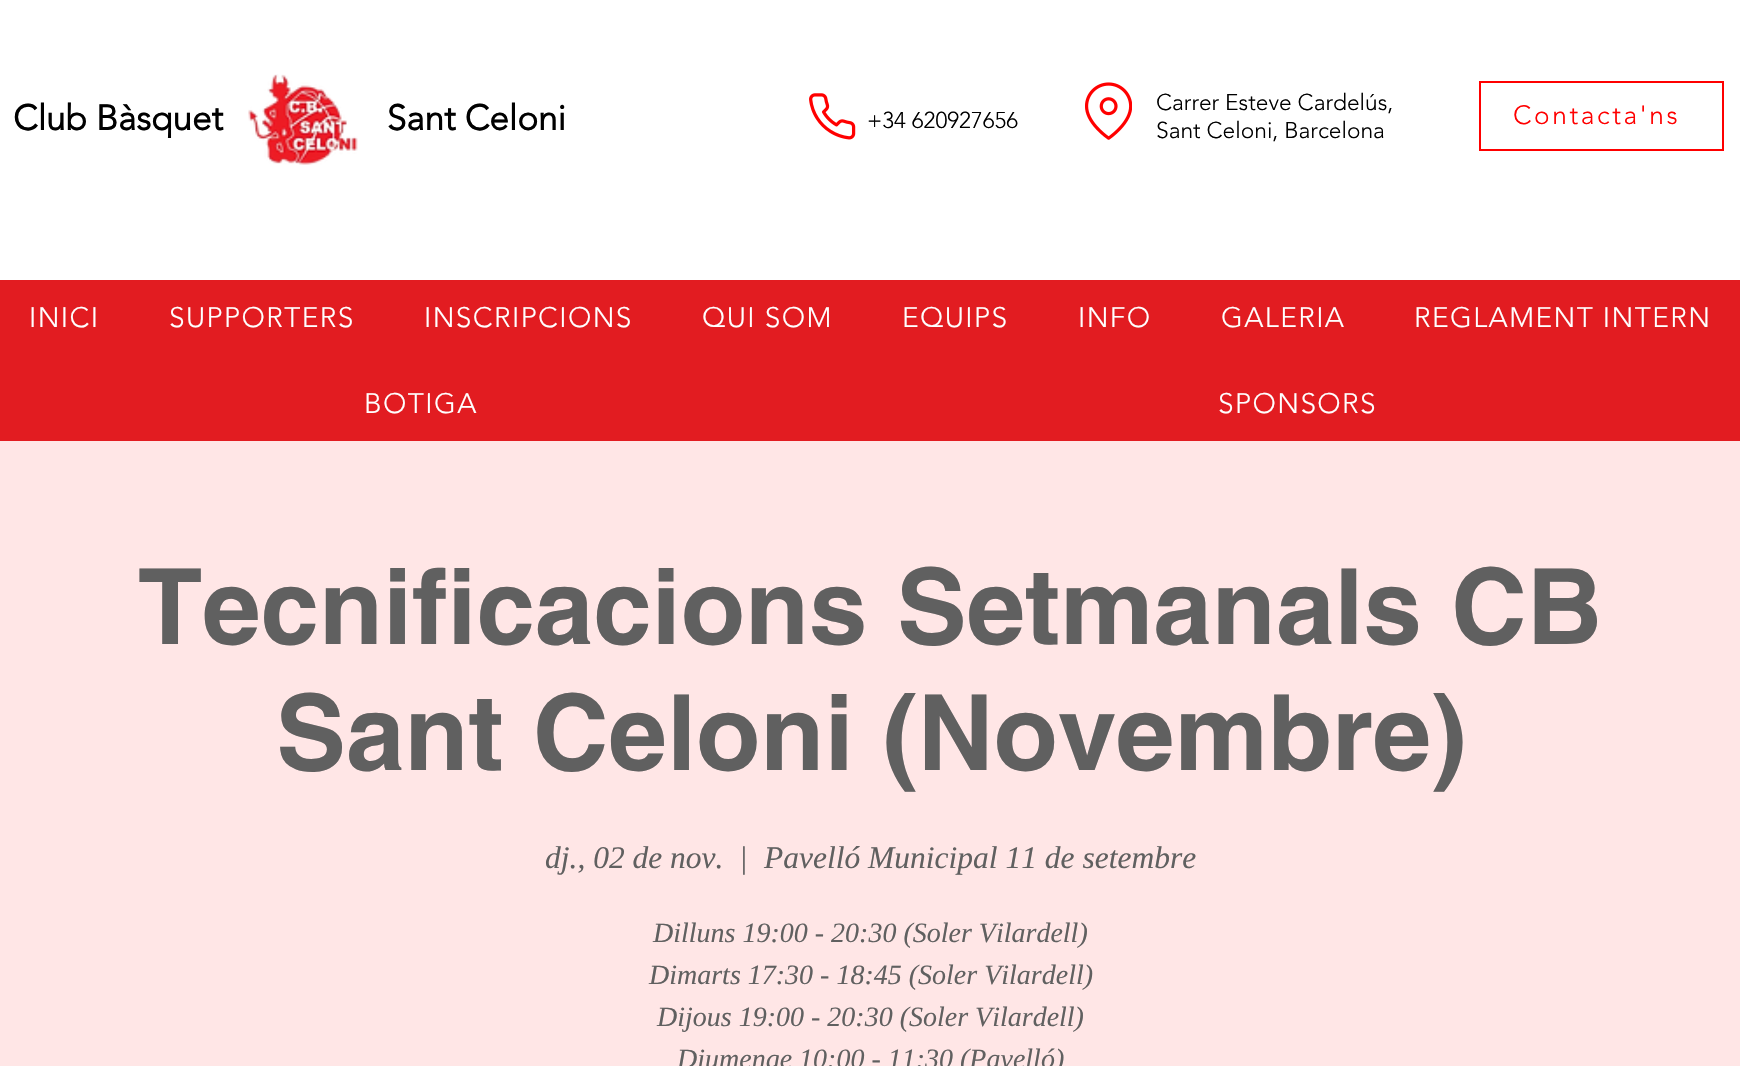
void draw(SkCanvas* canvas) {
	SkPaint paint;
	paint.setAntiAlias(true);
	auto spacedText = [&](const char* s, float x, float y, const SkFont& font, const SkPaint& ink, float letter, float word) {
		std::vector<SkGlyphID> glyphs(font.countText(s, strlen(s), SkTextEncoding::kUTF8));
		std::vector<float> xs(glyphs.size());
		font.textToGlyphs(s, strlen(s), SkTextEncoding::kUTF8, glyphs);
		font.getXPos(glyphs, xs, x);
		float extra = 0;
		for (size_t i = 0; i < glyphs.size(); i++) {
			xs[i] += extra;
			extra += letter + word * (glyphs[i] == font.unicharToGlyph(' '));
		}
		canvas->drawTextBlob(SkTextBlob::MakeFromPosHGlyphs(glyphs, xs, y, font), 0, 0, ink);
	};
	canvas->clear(0xffffe6e6);
	paint.setColor(0xffffffff);
	canvas->drawRect(SkRect::MakeXYWH(0, 0, 1740, 280), paint);
	SkFont f1(fontMgr->matchFamilyStyle("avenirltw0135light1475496", SkFontStyle::Bold()), 35);
	f1.setSubpixel(true);
	paint.setColor(0xff000000);
	canvas->drawString("Club Bàsquet                  Sant Celoni", 13, 130, f1, paint);
	canvas->drawImageRect(SkImages::DeferredFromEncodedData(SkData::MakeFromFileName("img1.png")), SkRect::MakeXYWH(248, 74, 110, 91), SkSamplingOptions());
	canvas->drawImageRect(SkImages::DeferredFromEncodedData(SkData::MakeFromFileName("img2.png")), SkRect::MakeXYWH(809, 93, 47, 47), SkSamplingOptions());
	canvas->drawImageRect(SkImages::DeferredFromEncodedData(SkData::MakeFromFileName("img3.png")), SkRect::MakeXYWH(1085, 82, 47, 58), SkSamplingOptions());
	SkFont f2(fontMgr->matchFamilyStyle("avenirltw0135light1475496", SkFontStyle(300, SkFontStyle::kNormal_Width, SkFontStyle::kUpright_Slant)), 22.75);
	f2.setSubpixel(true);
	canvas->drawString("Carrer Esteve Cardelús,", 1156, 110, f2, paint);
	canvas->drawString("Sant Celoni, Barcelona", 1156, 138, f2, paint);
	canvas->drawString("+34 620927656", 867, 128, f2, paint);
	paint.setStroke(true);
	paint.setStrokeWidth(2);
	paint.setColor(0xffff0000);
	canvas->drawRect(SkRect::MakeXYWH(1480, 82, 243, 68), paint);
	SkFont f3(fontMgr->matchFamilyStyle("avenirltw0135light1475496", SkFontStyle(300, SkFontStyle::kNormal_Width, SkFontStyle::kUpright_Slant)), 26.25);
	f3.setSubpixel(true);
	paint.setStroke(false);
	spacedText("Contacta'ns", 1513, 124, f3, paint, 2.6, 0);
	paint.setColor(0xffe21c21);
	canvas->drawRect(SkRect::MakeXYWH(0, 280, 1740, 161), paint);
	SkFont f4(fontMgr->matchFamilyStyle("avenirltw0135light1475496", SkFontStyle(300, SkFontStyle::kNormal_Width, SkFontStyle::kUpright_Slant)), 28);
	f4.setSubpixel(true);
	paint.setColor(0xffffffff);
	spacedText("INICI", 29, 327, f4, paint, 1.4, 0);
	spacedText("SUPPORTERS", 169, 327, f4, paint, 1.4, 0);
	spacedText("INSCRIPCIONS", 424, 327, f4, paint, 1.4, 0);
	spacedText("QUI SOM", 702, 327, f4, paint, 1.4, 0);
	spacedText("EQUIPS", 902, 327, f4, paint, 1.4, 0);
	spacedText("INFO", 1078, 327, f4, paint, 1.4, 0);
	spacedText("GALERIA", 1221, 327, f4, paint, 1.4, 0);
	spacedText("REGLAMENT INTERN", 1414, 327, f4, paint, 1.4, 0);
	spacedText("BOTIGA", 364, 413, f4, paint, 1.4, 0);
	spacedText("SPONSORS", 1218, 413, f4, paint, 1.4, 0);
	SkFont f5(fontMgr->matchFamilyStyle("helvetica", SkFontStyle::Bold()), 105);
	f5.setSubpixel(true);
	paint.setColor(0xff606060);
	canvas->drawString("Tecnificacions Setmanals CB", 138, 644, f5, paint);
	canvas->drawString("Sant Celoni (Novembre)", 276, 770, f5, paint);
	SkFont f6(fontMgr->matchFamilyStyle("Liberation Serif", SkFontStyle::Italic()), 31.5);
	f6.setSubpixel(true);
	canvas->drawString("dj., 02 de nov.", 545, 868, f6, paint);
	canvas->drawString("|", 739, 868, f6, paint);
	canvas->drawString("Pavelló Municipal 11 de setembre", 764, 868, f6, paint);
	SkFont f7(fontMgr->matchFamilyStyle("Liberation Serif", SkFontStyle::Italic()), 28);
	f7.setSubpixel(true);
	canvas->drawString("Dilluns 19:00 - 20:30 (Soler Vilardell)", 653, 942, f7, paint);
	canvas->drawString("Dimarts 17:30 - 18:45 (Soler Vilardell)", 649, 984, f7, paint);
	canvas->drawString("Dijous 19:00 - 20:30 (Soler Vilardell)", 657, 1026, f7, paint);
	canvas->drawString("Diumenge 10:00 - 11:30 (Pavelló)", 677, 1068, f7, paint);
}
